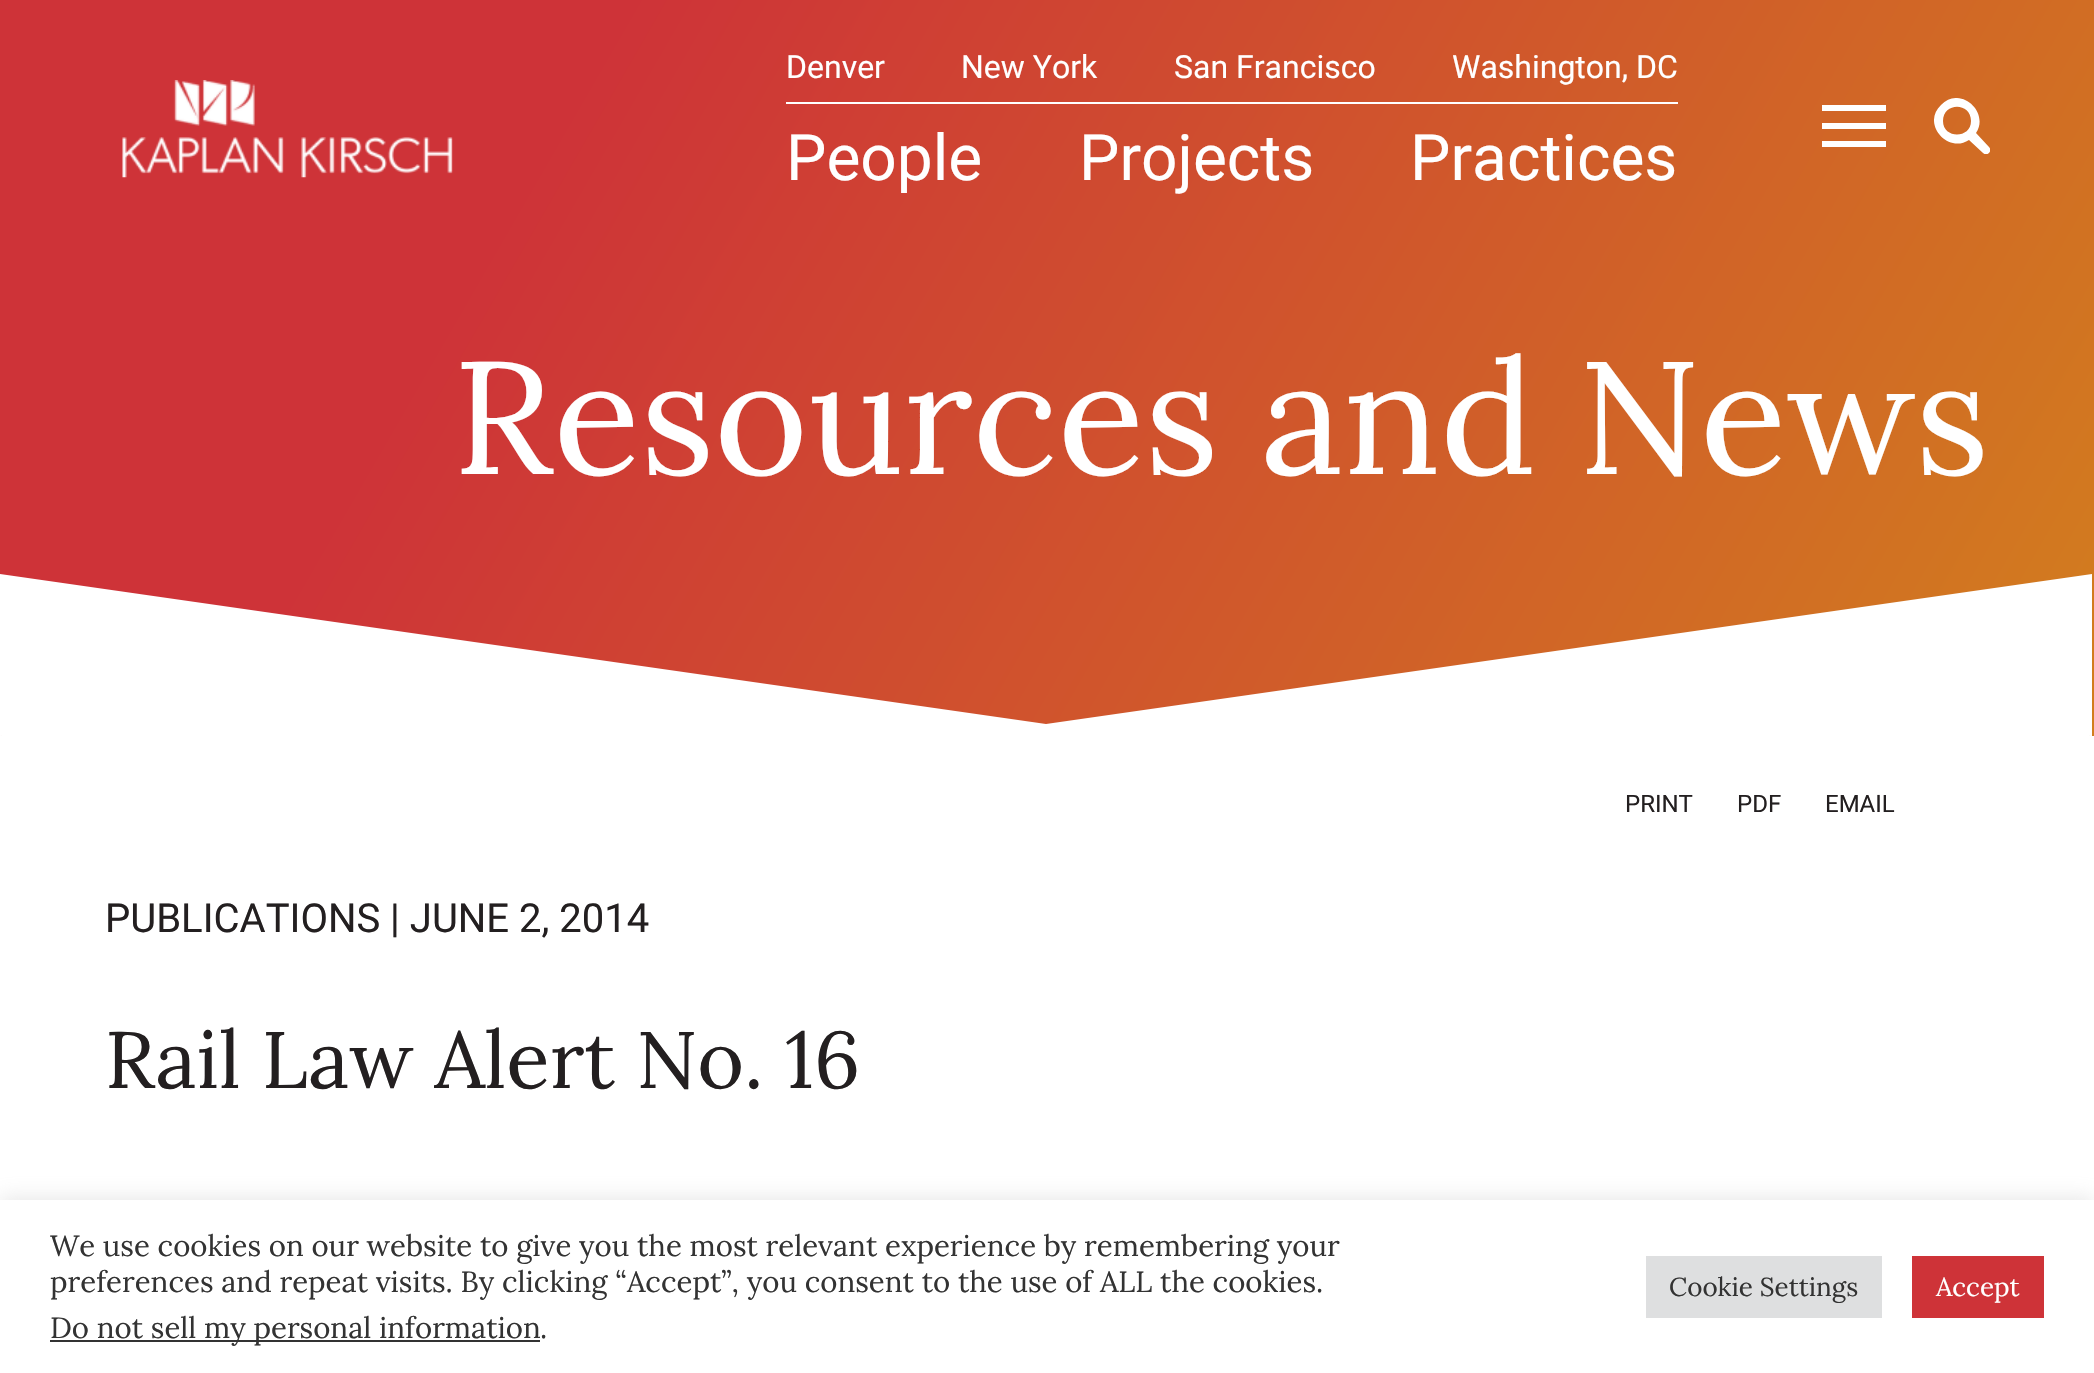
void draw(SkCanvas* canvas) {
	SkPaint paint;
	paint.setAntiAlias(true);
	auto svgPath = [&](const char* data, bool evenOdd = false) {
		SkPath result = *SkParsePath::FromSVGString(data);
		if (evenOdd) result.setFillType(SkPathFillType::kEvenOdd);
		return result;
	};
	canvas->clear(0xffffffff);
	{
		const SkColor colors[] = {0xffce3338, 0xffd27e1e};
		const float stops[] = {0.25, 1};
		const SkPoint ends[] = {{102, -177}, {1992, 913}};
		paint.setShader(SkGradientShader::MakeLinear(ends, colors, stops, 2, SkTileMode::kClamp));
		paint.setAlpha(255);
	}
	canvas->drawRect(SkRect::MakeXYWH(0, 0, 2094, 736), paint);
	canvas->drawImageRect(SkImages::DeferredFromEncodedData(SkData::MakeFromFileName("img1.png")), SkRect::MakeXYWH(122, 80, 331, 98), SkSamplingOptions());
	paint.setShader(nullptr);
	paint.setColor(0xffffffff);
	canvas->drawRect(SkRect::MakeXYWH(786, 102, 892, 2), paint);
	SkFont f1(fontMgr->matchFamilyStyle("Roboto", SkFontStyle::Normal()), 32);
	f1.setSubpixel(true);
	canvas->drawString("Denver", 786, 78, f1, paint);
	canvas->drawString("New York", 961, 78, f1, paint);
	canvas->drawString("San Francisco", 1174, 78, f1, paint);
	canvas->drawString("Washington, DC", 1452, 78, f1, paint);
	SkFont f2(fontMgr->matchFamilyStyle("Roboto", SkFontStyle::Normal()), 64);
	f2.setSubpixel(true);
	canvas->drawString("People", 786, 180, f2, paint);
	canvas->drawString("Projects", 1079, 180, f2, paint);
	canvas->drawString("Practices", 1410, 180, f2, paint);
	canvas->drawRect(SkRect::MakeXYWH(1822, 105, 64, 6), paint);
	canvas->drawRect(SkRect::MakeXYWH(1822, 123, 64, 6), paint);
	canvas->drawRect(SkRect::MakeXYWH(1822, 141, 64, 6), paint);
	canvas->save();
	canvas->clipRect(SkRect::MakeXYWH(1934, 98, 56, 56));
	canvas->drawPath(svgPath("M1989 147L1976 133C1990 112 1960 85 1941 105C1921 124 1948 154 1969 140L1983 153C1987 157 1993 151 1989 147ZM1943 121C1943 102 1971 102 1971 121C1971 139 1943 139 1943 121Z"), paint);
	canvas->restore();
	SkFont f3(fontMgr->matchFamilyStyle("Lora", SkFontStyle::Normal()), 160);
	f3.setSubpixel(true);
	canvas->drawString("Resources and News", 453, 474, f3, paint);
	canvas->drawPath(svgPath("M2092 574V736L1046 724Z"), paint);
	canvas->drawRect(SkRect::MakeXYWH(2, 724, 2087, 12), paint);
	canvas->drawPath(svgPath("M0 736V574L1046 724Z"), paint);
	SkFont f4(fontMgr->matchFamilyStyle("Roboto", SkFontStyle::Normal()), 24);
	f4.setSubpixel(true);
	paint.setColor(0xff231f20);
	canvas->drawString("PRINT", 1625, 812, f4, paint);
	canvas->drawString("PDF", 1737, 812, f4, paint);
	canvas->drawString("EMAIL", 1825, 812, f4, paint);
	SkFont f5(fontMgr->matchFamilyStyle("Roboto", SkFontStyle::Normal()), 40);
	f5.setSubpixel(true);
	canvas->drawString("PUBLICATIONS | JUNE 2, 2014", 105, 932, f5, paint);
	SkFont f6(fontMgr->matchFamilyStyle("Lora", SkFontStyle::Normal()), 80);
	f6.setSubpixel(true);
	canvas->drawString("Rail Law Alert No. 16", 105, 1088, f6, paint);
	paint.setColor(0x4dacabab);
	paint.setMaskFilter(SkMaskFilter::MakeBlur(kNormal_SkBlurStyle, 10));
	canvas->drawRect(SkRect::MakeXYWH(0, 1198, 2094, 174), paint);
	paint.setMaskFilter(nullptr);
	paint.setColor(0xffffffff);
	canvas->drawRect(SkRect::MakeXYWH(0, 1200, 2094, 173), paint);
	SkFont f7(fontMgr->matchFamilyStyle("Lora", SkFontStyle::Normal()), 29.35);
	f7.setSubpixel(true);
	paint.setColor(0xff333333);
	canvas->drawString("We use cookies on our website to give you the most relevant experience by remembering your", 50, 1256, f7, paint);
	canvas->drawString("preferences and repeat visits. By clicking “Accept”, you consent to the use of ALL the cookies.", 50, 1292, f7, paint);
	canvas->drawRect(SkRect::MakeXYWH(50, 1340, 490, 2), paint);
	canvas->drawString("Do not sell my personal information", 50, 1338, f7, paint);
	canvas->drawString(".", 540, 1338, f7, paint);
	paint.setColor(0xffdedfe0);
	canvas->drawRect(SkRect::MakeXYWH(1646, 1256, 236, 62), paint);
	SkFont f8(fontMgr->matchFamilyStyle("Lora", SkFontStyle::Normal()), 26);
	f8.setSubpixel(true);
	paint.setColor(0xff333333);
	canvas->drawString("Cookie Settings", 1669, 1296, f8, paint);
	paint.setColor(0xffce3338);
	canvas->drawRect(SkRect::MakeXYWH(1912, 1256, 132, 62), paint);
	paint.setColor(0xffffffff);
	canvas->drawString("Accept", 1936, 1296, f8, paint);
}
